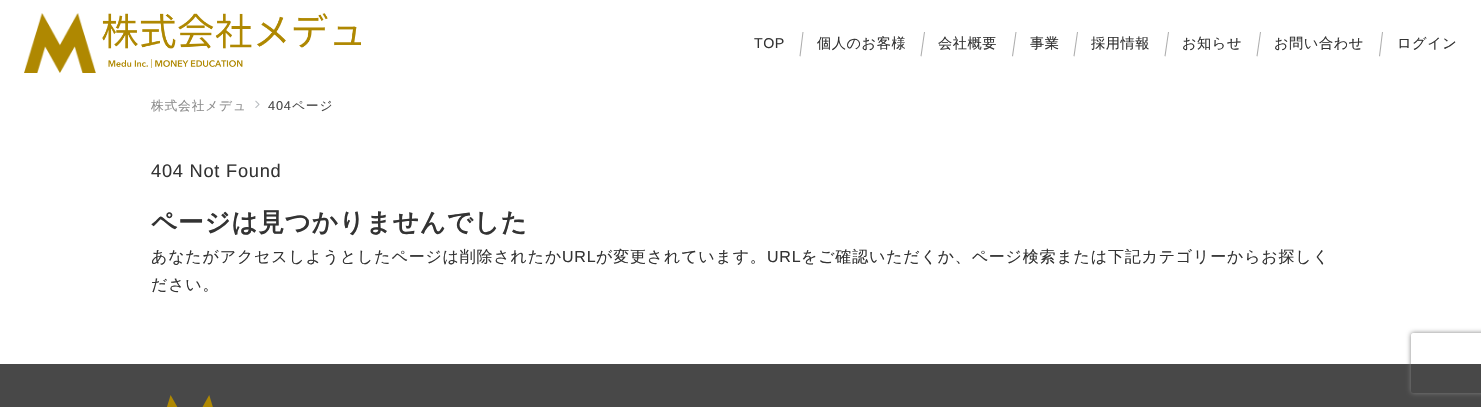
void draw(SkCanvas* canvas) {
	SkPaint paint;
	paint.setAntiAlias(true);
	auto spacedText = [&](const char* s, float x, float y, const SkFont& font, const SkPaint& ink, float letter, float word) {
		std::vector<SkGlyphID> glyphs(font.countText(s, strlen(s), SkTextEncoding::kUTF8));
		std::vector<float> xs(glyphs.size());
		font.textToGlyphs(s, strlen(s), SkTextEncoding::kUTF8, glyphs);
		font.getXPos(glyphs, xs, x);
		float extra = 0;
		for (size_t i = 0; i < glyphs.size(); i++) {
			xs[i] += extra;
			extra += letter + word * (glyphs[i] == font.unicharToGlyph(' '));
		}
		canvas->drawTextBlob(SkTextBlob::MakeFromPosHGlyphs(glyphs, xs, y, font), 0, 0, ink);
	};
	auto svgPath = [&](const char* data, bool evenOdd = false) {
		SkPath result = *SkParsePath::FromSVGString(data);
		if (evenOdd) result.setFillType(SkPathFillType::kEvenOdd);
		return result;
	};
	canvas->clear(0xffffffff);
	canvas->drawImageRect(SkImages::DeferredFromEncodedData(SkData::MakeFromFileName("img1.png")), SkRect::MakeXYWH(24, 13, 72, 60), SkSamplingOptions());
	canvas->drawImageRect(SkImages::DeferredFromEncodedData(SkData::MakeFromFileName("img2.png")), SkRect::MakeXYWH(102, 13, 259, 55), SkSamplingOptions());
	SkFont f1(fontMgr->matchFamilyStyle("Liberation Sans", SkFontStyle::Normal()), 14.25);
	f1.setSubpixel(true);
	paint.setColor(0xff333333);
	spacedText("TOP", 754, 48, f1, paint, 0.5, 0);
	paint.setColor(0xffadadad);
	canvas->drawPath(svgPath("M802.5 32H803.5L800.5 56.5L799.5 56Z"), paint);
	SkFont f2(fontMgr->matchFamilyStyle("WenQuanYi Zen Hei", SkFontStyle(500, SkFontStyle::kNormal_Width, SkFontStyle::kUpright_Slant)), 14.25);
	f2.setSubpixel(true);
	paint.setColor(0xff333333);
	spacedText("個人のお客様", 817, 48, f2, paint, 0.5, 0);
	paint.setColor(0xffadadad);
	canvas->drawPath(svgPath("M924 32H925L921.5 56.5L920.5 56Z"), paint);
	paint.setColor(0xff333333);
	spacedText("会社概要", 938, 48, f2, paint, 0.5, 0);
	paint.setColor(0xffadadad);
	canvas->drawPath(svgPath("M1015.5 32H1016.5L1013 56.5L1012 56Z"), paint);
	paint.setColor(0xff333333);
	spacedText("事業", 1030, 48, f2, paint, 0.5, 0);
	paint.setColor(0xffadadad);
	canvas->drawPath(svgPath("M1077 32H1078L1074.5 56.5L1073.5 56Z"), paint);
	paint.setColor(0xff333333);
	spacedText("採用情報", 1091, 48, f2, paint, 0.5, 0);
	paint.setColor(0xffadadad);
	canvas->drawPath(svgPath("M1168 32H1169L1165.5 56.5L1164.5 56Z"), paint);
	paint.setColor(0xff333333);
	spacedText("お知らせ", 1182, 48, f2, paint, 0.5, 0);
	paint.setColor(0xffadadad);
	canvas->drawPath(svgPath("M1260 32H1261L1257.5 56.5L1256.5 56Z"), paint);
	paint.setColor(0xff333333);
	spacedText("お問い合わせ", 1274, 48, f2, paint, 0.5, 0);
	paint.setColor(0xffadadad);
	canvas->drawPath(svgPath("M1382 32H1383L1380 56.5L1379 56Z"), paint);
	paint.setColor(0xff333333);
	spacedText("ログイン", 1397, 48, f2, paint, 0.5, 0);
	canvas->save();
	canvas->clipRect(SkRect::MakeXYWH(151, 96, 1180, 20));
	SkFont f3(fontMgr->matchFamilyStyle("WenQuanYi Zen Hei", SkFontStyle(500, SkFontStyle::kNormal_Width, SkFontStyle::kUpright_Slant)), 12.75);
	f3.setSubpixel(true);
	paint.setColor(0xff8e8e8e);
	spacedText("株式会社メデュ", 151, 110, f3, paint, 0.8, 0);
	canvas->restore();
	canvas->drawImageRect(SkImages::DeferredFromEncodedData(SkData::MakeFromFileName("img3.png")), SkRect::MakeXYWH(255, 100, 5, 8), SkSamplingOptions());
	SkFont f4(fontMgr->matchFamilyStyle("Liberation Sans", SkFontStyle::Normal()), 12.75);
	f4.setSubpixel(true);
	paint.setColor(0xff484848);
	spacedText("404", 268, 110, f4, paint, 0.8, 0);
	spacedText("ページ", 292, 110, f3, paint, 0.8, 0);
	SkFont f5(fontMgr->matchFamilyStyle("Liberation Sans", SkFontStyle::Normal()), 18.25);
	f5.setSubpixel(true);
	paint.setColor(0xff333333);
	spacedText("404 Not Found", 151, 177, f5, paint, 0.75, 0);
	SkFont f6(fontMgr->matchFamilyStyle("WenQuanYi Zen Hei", SkFontStyle::Bold()), 25.6);
	f6.setSubpixel(true);
	spacedText("ページは見つかりませんでした", 151, 231, f6, paint, 0.8, 0);
	SkFont f7(fontMgr->matchFamilyStyle("WenQuanYi Zen Hei", SkFontStyle(500, SkFontStyle::kNormal_Width, SkFontStyle::kUpright_Slant)), 16);
	f7.setSubpixel(true);
	spacedText("あなたがアクセスしようとしたページは削除されたか", 151, 262, f7, paint, 0.8, 0);
	SkFont f8(fontMgr->matchFamilyStyle("Liberation Sans", SkFontStyle::Normal()), 16);
	f8.setSubpixel(true);
	spacedText("URL", 562, 262, f8, paint, 0.8, 0);
	spacedText("が変更されています。", 596, 262, f7, paint, 0.8, 0);
	spacedText("URL", 767, 262, f8, paint, 0.8, 0);
	spacedText("をご確認いただくか、ページ検索または下記カテゴリーからお探しく", 801, 262, f7, paint, 0.8, 0);
	spacedText("ださい。", 151, 290, f7, paint, 0.8, 0);
	paint.setColor(0xff484848);
	canvas->drawRect(SkRect::MakeXYWH(0, 364, 1481, 43), paint);
	canvas->drawImageRect(SkImages::DeferredFromEncodedData(SkData::MakeFromFileName("img4.png")), SkRect::MakeXYWH(167, 395, 46, 12), SkSamplingOptions());
	canvas->save();
	canvas->clipPath(svgPath("M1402 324H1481V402H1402ZM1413 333H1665C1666 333 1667 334 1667 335V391C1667 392 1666 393 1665 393H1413C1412 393 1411 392 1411 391V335C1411 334 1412 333 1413 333Z", true), true);
	paint.setColor(0xff808080);
	paint.setMaskFilter(SkMaskFilter::MakeBlur(kNormal_SkBlurStyle, 2.5));
	canvas->drawRoundRect(SkRect::MakeXYWH(1411, 333, 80, 60), 2, 2, paint);
	paint.setMaskFilter(nullptr);
	canvas->restore();
}
